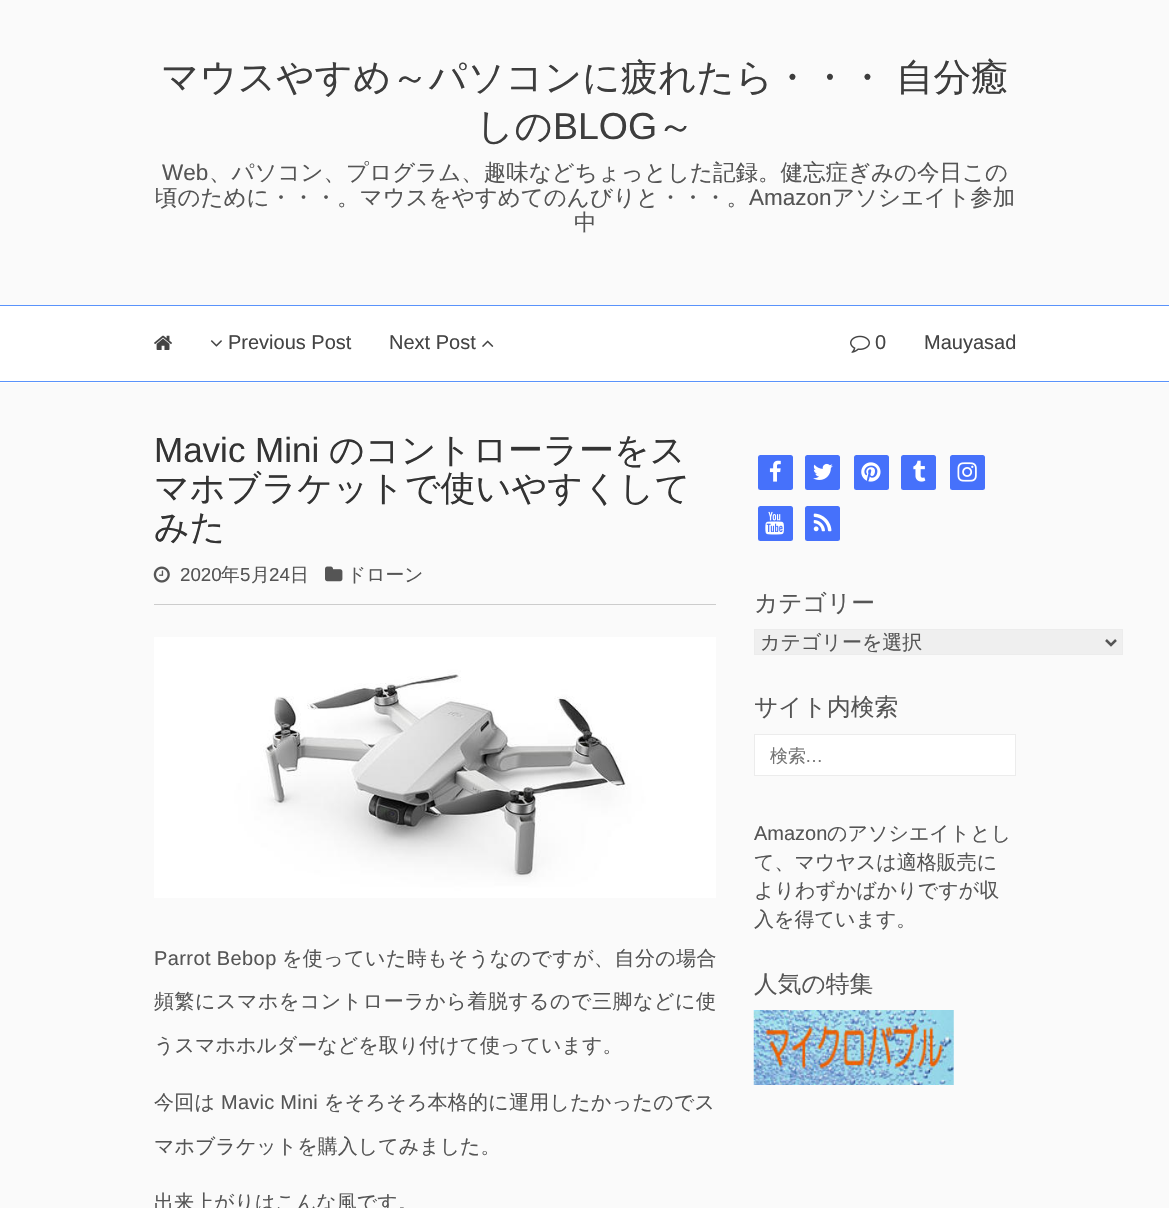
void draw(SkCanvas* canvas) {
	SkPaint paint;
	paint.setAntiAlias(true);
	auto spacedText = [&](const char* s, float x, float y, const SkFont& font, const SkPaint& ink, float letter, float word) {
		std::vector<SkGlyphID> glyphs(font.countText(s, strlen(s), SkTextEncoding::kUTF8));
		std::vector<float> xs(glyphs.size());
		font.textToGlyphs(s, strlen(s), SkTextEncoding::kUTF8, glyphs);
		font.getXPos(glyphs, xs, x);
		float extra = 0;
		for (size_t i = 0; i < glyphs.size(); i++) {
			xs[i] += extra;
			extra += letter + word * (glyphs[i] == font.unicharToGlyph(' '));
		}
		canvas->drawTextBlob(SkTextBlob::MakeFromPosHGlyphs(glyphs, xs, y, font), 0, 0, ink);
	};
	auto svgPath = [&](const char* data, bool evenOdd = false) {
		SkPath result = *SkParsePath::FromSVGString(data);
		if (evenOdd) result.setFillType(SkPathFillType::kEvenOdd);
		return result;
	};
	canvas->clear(0xfffafafa);
	SkFont f1(fontMgr->matchFamilyStyle("WenQuanYi Zen Hei", SkFontStyle(500, SkFontStyle::kNormal_Width, SkFontStyle::kUpright_Slant)), 37.5);
	f1.setSubpixel(true);
	paint.setColor(0xff3d3d3d);
	spacedText("マウスやすめ～パソコンに疲れたら・・・ 自分癒", 161, 90, f1, paint, 0, -1);
	canvas->drawString("しの", 476, 139, f1, paint);
	SkFont f2(fontMgr->matchFamilyStyle("Liberation Sans", SkFontStyle::Normal()), 37.5);
	f2.setSubpixel(true);
	canvas->drawString("BLOG", 553, 139, f2, paint);
	canvas->drawString("～", 657, 139, f1, paint);
	SkFont f3(fontMgr->matchFamilyStyle("Liberation Sans", SkFontStyle::Normal()), 22.5);
	f3.setSubpixel(true);
	paint.setColor(0xff555555);
	canvas->drawString("Web", 162, 180, f3, paint);
	SkFont f4(fontMgr->matchFamilyStyle("WenQuanYi Zen Hei", SkFontStyle(500, SkFontStyle::kNormal_Width, SkFontStyle::kUpright_Slant)), 22.5);
	f4.setSubpixel(true);
	canvas->drawString("、パソコン、プログラム、趣味などちょっとした記録。健忘症ぎみの今日この", 209, 180, f4, paint);
	canvas->drawString("頃のために・・・。マウスをやすめてのんびりと・・・。", 155, 205, f4, paint);
	canvas->drawString("Amazon", 749, 205, f3, paint);
	canvas->drawString("アソシエイト参加", 832, 205, f4, paint);
	canvas->drawString("中", 574, 230, f4, paint);
	paint.setColor(0xffffffff);
	canvas->drawRect(SkRect::MakeXYWH(0, 306, 1169, 77), paint);
	paint.setColor(0xff5a93fb);
	canvas->drawRect(SkRect::MakeXYWH(0, 305, 1169, 1), paint);
	canvas->drawRect(SkRect::MakeXYWH(0, 381, 1169, 1), paint);
	canvas->drawImageRect(SkImages::DeferredFromEncodedData(SkData::MakeFromFileName("img1.png")), SkRect::MakeXYWH(154, 335, 18, 15), SkSamplingOptions());
	canvas->drawImageRect(SkImages::DeferredFromEncodedData(SkData::MakeFromFileName("img2.png")), SkRect::MakeXYWH(210, 340, 12, 7), SkSamplingOptions());
	SkFont f5(fontMgr->matchFamilyStyle("Liberation Sans", SkFontStyle::Normal()), 20);
	f5.setSubpixel(true);
	paint.setColor(0xff444444);
	canvas->drawString("Previous Post", 228, 349, f5, paint);
	canvas->drawString("Next Post", 389, 349, f5, paint);
	canvas->drawImageRect(SkImages::DeferredFromEncodedData(SkData::MakeFromFileName("img3.png")), SkRect::MakeXYWH(482, 340, 12, 7), SkSamplingOptions());
	canvas->drawImageRect(SkImages::DeferredFromEncodedData(SkData::MakeFromFileName("img4.png")), SkRect::MakeXYWH(850, 335, 20, 18), SkSamplingOptions());
	canvas->drawString("0", 875, 349, f5, paint);
	canvas->drawString("Mauyasad", 924, 349, f5, paint);
	SkFont f6(fontMgr->matchFamilyStyle("Liberation Sans", SkFontStyle::Normal()), 35);
	f6.setSubpixel(true);
	paint.setColor(0xff333333);
	canvas->drawString("Mavic Mini", 154, 462, f6, paint);
	SkFont f7(fontMgr->matchFamilyStyle("WenQuanYi Zen Hei", SkFontStyle(500, SkFontStyle::kNormal_Width, SkFontStyle::kUpright_Slant)), 35);
	f7.setSubpixel(true);
	canvas->drawString("のコントローラーをス", 329, 462, f7, paint);
	canvas->drawString("マホブラケットで使いやすくして", 154, 500, f7, paint);
	canvas->drawString("みた", 154, 539, f7, paint);
	paint.setColor(0xffcccccc);
	canvas->drawRect(SkRect::MakeXYWH(154, 604, 562, 1), paint);
	canvas->drawImageRect(SkImages::DeferredFromEncodedData(SkData::MakeFromFileName("img5.png")), SkRect::MakeXYWH(153, 566, 17, 17), SkSamplingOptions());
	SkFont f8(fontMgr->matchFamilyStyle("Liberation Sans", SkFontStyle::Normal()), 18.75);
	f8.setSubpixel(true);
	paint.setColor(0xff555555);
	canvas->drawString("2020", 180, 581, f8, paint);
	SkFont f9(fontMgr->matchFamilyStyle("WenQuanYi Zen Hei", SkFontStyle(500, SkFontStyle::kNormal_Width, SkFontStyle::kUpright_Slant)), 18.75);
	f9.setSubpixel(true);
	canvas->drawString("年", 221, 581, f9, paint);
	canvas->drawString("5", 240, 581, f8, paint);
	canvas->drawString("月", 251, 581, f9, paint);
	canvas->drawString("24", 269, 581, f8, paint);
	canvas->drawString("日", 290, 581, f9, paint);
	canvas->drawImageRect(SkImages::DeferredFromEncodedData(SkData::MakeFromFileName("img6.png")), SkRect::MakeXYWH(325, 566, 18, 16), SkSamplingOptions());
	canvas->drawString("ドローン", 347, 581, f9, paint);
	canvas->drawImageRect(SkImages::DeferredFromEncodedData(SkData::MakeFromFileName("img7.png")), SkRect::MakeXYWH(154, 637, 562, 261), SkSamplingOptions());
	spacedText("Parrot Bebop", 154, 965, f5, paint, 0.4, 0);
	SkFont f10(fontMgr->matchFamilyStyle("WenQuanYi Zen Hei", SkFontStyle(500, SkFontStyle::kNormal_Width, SkFontStyle::kUpright_Slant)), 20);
	f10.setSubpixel(true);
	spacedText("を使っていた時もそうなのですが、自分の場合", 282, 965, f10, paint, 0.4, 0);
	spacedText("頻繁にスマホをコントローラから着脱するので三脚などに使", 154, 1008, f10, paint, 0.5, 0);
	canvas->drawString("うスマホホルダーなどを取り付けて使っています。", 154, 1052, f10, paint);
	spacedText("今回は", 154, 1109, f10, paint, 0.25, 0);
	spacedText("Mavic Mini", 221, 1109, f5, paint, 0.25, 0);
	spacedText("をそろそろ本格的に運用したかったのでス", 324, 1109, f10, paint, 0.25, 0);
	canvas->drawString("マホブラケットを購入してみました。", 154, 1153, f10, paint);
	canvas->drawString("出来上がりはこんな風です。", 154, 1209, f10, paint);
	paint.setColor(0xff4671fb);
	canvas->drawRoundRect(SkRect::MakeXYWH(758, 455, 35, 35), 2.5, 2.5, paint);
	canvas->drawImageRect(SkImages::DeferredFromEncodedData(SkData::MakeFromFileName("img8.png")), SkRect::MakeXYWH(769, 460, 12, 22), SkSamplingOptions());
	canvas->drawRoundRect(SkRect::MakeXYWH(805, 455, 35, 35), 2.5, 2.5, paint);
	canvas->drawImageRect(SkImages::DeferredFromEncodedData(SkData::MakeFromFileName("img9.png")), SkRect::MakeXYWH(813, 463, 20, 17), SkSamplingOptions());
	canvas->drawRoundRect(SkRect::MakeXYWH(854, 455, 35, 35), 2.5, 2.5, paint);
	canvas->drawImageRect(SkImages::DeferredFromEncodedData(SkData::MakeFromFileName("img10.png")), SkRect::MakeXYWH(861, 462, 20, 20), SkSamplingOptions());
	canvas->drawRoundRect(SkRect::MakeXYWH(901, 455, 35, 35), 2.5, 2.5, paint);
	canvas->drawImageRect(SkImages::DeferredFromEncodedData(SkData::MakeFromFileName("img11.png")), SkRect::MakeXYWH(913, 460, 13, 22), SkSamplingOptions());
	canvas->drawRoundRect(SkRect::MakeXYWH(950, 455, 35, 35), 2.5, 2.5, paint);
	canvas->drawImageRect(SkImages::DeferredFromEncodedData(SkData::MakeFromFileName("img12.png")), SkRect::MakeXYWH(957, 462, 20, 20), SkSamplingOptions());
	canvas->drawRoundRect(SkRect::MakeXYWH(758, 506, 35, 35), 2.5, 2.5, paint);
	canvas->drawImageRect(SkImages::DeferredFromEncodedData(SkData::MakeFromFileName("img13.png")), SkRect::MakeXYWH(765, 511, 19, 24), SkSamplingOptions());
	canvas->drawRoundRect(SkRect::MakeXYWH(805, 506, 35, 35), 2.5, 2.5, paint);
	canvas->drawImageRect(SkImages::DeferredFromEncodedData(SkData::MakeFromFileName("img14.png")), SkRect::MakeXYWH(813, 513, 19, 19), SkSamplingOptions());
	SkFont f11(fontMgr->matchFamilyStyle("WenQuanYi Zen Hei", SkFontStyle(500, SkFontStyle::kNormal_Width, SkFontStyle::kUpright_Slant)), 23.75);
	f11.setSubpixel(true);
	paint.setColor(0xff555555);
	canvas->drawString("カテゴリー", 754, 611, f11, paint);
	paint.setColor(0xffefefef);
	canvas->drawRect(SkRect::MakeXYWH(754.5, 629.5, 368, 25), paint);
	paint.setStroke(true);
	paint.setStrokeWidth(1);
	paint.setColor(0xffececec);
	canvas->drawRect(SkRect::MakeXYWH(754.5, 629.5, 368, 25), paint);
	paint.setStrokeWidth(2.5);
	paint.setColor(0xff555555);
	canvas->drawPath(svgPath("M1106 640L1111 645L1116 640"), paint);
	paint.setStroke(false);
	canvas->drawString("カテゴリーを選択", 760, 649, f10, paint);
	canvas->drawString("サイト内検索", 754, 715, f11, paint);
	paint.setColor(0xffffffff);
	canvas->drawRect(SkRect::MakeXYWH(754.5, 734.5, 261, 41), paint);
	paint.setStroke(true);
	paint.setStrokeWidth(1);
	paint.setColor(0xffececec);
	canvas->drawRect(SkRect::MakeXYWH(754.5, 734.5, 261, 41), paint);
	SkFont f12(fontMgr->matchFamilyStyle("WenQuanYi Zen Hei", SkFontStyle(500, SkFontStyle::kNormal_Width, SkFontStyle::kUpright_Slant)), 18);
	f12.setSubpixel(true);
	paint.setStroke(false);
	paint.setColor(0xff757575);
	canvas->drawString("検索", 770, 762, f12, paint);
	SkFont f13(fontMgr->matchFamilyStyle("Liberation Sans", SkFontStyle::Normal()), 18);
	f13.setSubpixel(true);
	canvas->drawString("…", 805, 762, f13, paint);
	paint.setColor(0xff555555);
	canvas->drawString("Amazon", 754, 840, f5, paint);
	canvas->drawString("のアソシエイトとし", 827, 840, f10, paint);
	canvas->drawString("て、マウヤスは適格販売に", 754, 869, f10, paint);
	canvas->drawString("よりわずかばかりですが収", 754, 897, f10, paint);
	canvas->drawString("入を得ています。", 754, 926, f10, paint);
	canvas->drawString("人気の特集", 754, 992, f11, paint);
	canvas->drawImageRect(SkImages::DeferredFromEncodedData(SkData::MakeFromFileName("img15.png")), SkRect::MakeXYWH(753, 1010, 201, 75), SkSamplingOptions());
}
